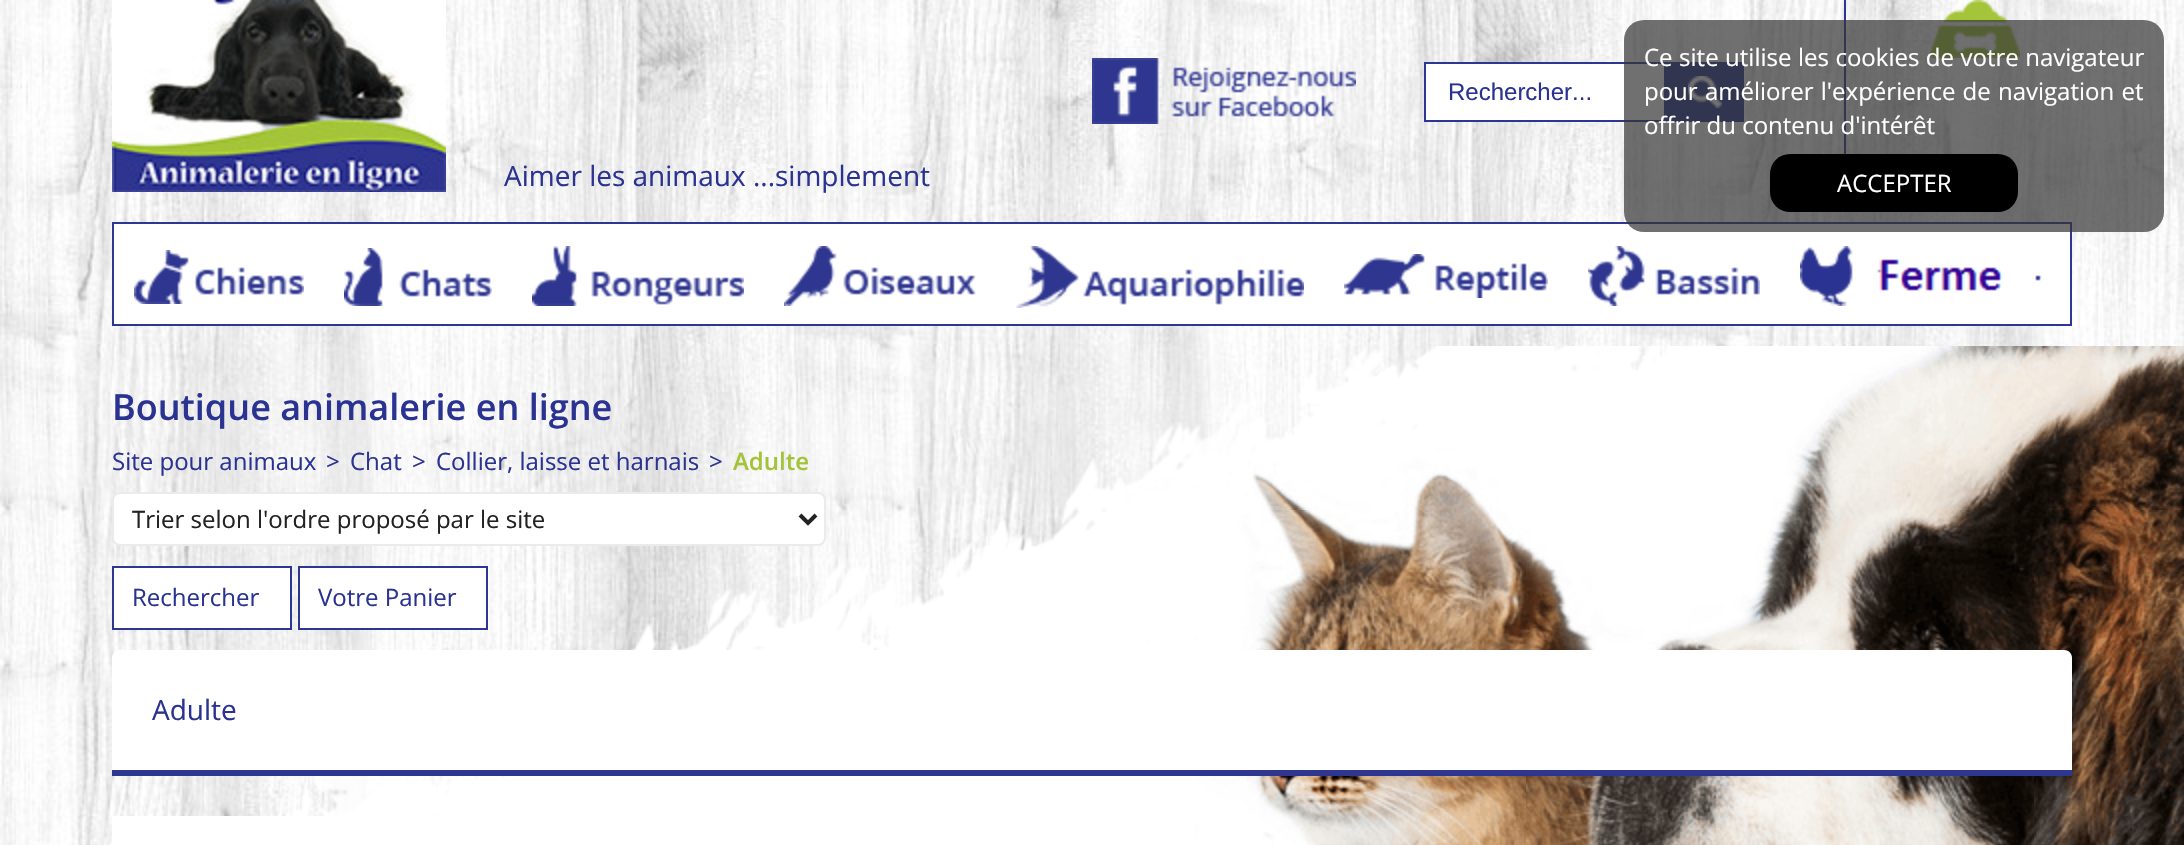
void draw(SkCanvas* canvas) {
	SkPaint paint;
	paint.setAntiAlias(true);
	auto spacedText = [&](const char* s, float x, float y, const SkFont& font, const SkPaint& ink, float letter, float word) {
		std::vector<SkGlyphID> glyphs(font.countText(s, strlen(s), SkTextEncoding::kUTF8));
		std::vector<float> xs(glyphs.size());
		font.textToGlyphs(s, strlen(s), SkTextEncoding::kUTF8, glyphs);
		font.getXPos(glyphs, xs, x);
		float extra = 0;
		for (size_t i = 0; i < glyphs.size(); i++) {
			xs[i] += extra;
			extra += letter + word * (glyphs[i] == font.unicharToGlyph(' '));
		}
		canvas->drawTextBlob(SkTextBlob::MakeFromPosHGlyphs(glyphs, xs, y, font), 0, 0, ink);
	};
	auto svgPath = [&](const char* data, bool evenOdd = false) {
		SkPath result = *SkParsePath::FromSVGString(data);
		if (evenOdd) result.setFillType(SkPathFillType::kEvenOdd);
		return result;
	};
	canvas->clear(0xffffffff);
	canvas->drawImageRect(SkImages::DeferredFromEncodedData(SkData::MakeFromFileName("img1.png")), SkRect::MakeXYWH(0, 0, 2184, 845), SkSamplingOptions());
	canvas->drawImageRect(SkImages::DeferredFromEncodedData(SkData::MakeFromFileName("img2.png")), SkRect::MakeXYWH(112, 0, 334, 192), SkSamplingOptions());
	canvas->drawImageRect(SkImages::DeferredFromEncodedData(SkData::MakeFromFileName("img3.png")), SkRect::MakeXYWH(1930, 0, 90, 58), SkSamplingOptions());
	paint.setColor(0xff2f3690);
	canvas->drawRect(SkRect::MakeXYWH(1844, 0, 2, 154), paint);
	canvas->drawImageRect(SkImages::DeferredFromEncodedData(SkData::MakeFromFileName("img4.png")), SkRect::MakeXYWH(1092, 58, 264, 66), SkSamplingOptions());
	paint.setColor(0xffffffff);
	canvas->drawRect(SkRect::MakeXYWH(1426, 64, 238, 56), paint);
	paint.setStroke(true);
	paint.setStrokeWidth(2);
	paint.setColor(0xff2f3690);
	canvas->drawRect(SkRect::MakeXYWH(1425, 63, 318, 58), paint);
	SkFont f1(fontMgr->matchFamilyStyle("Liberation Sans", SkFontStyle::Normal()), 24);
	f1.setSubpixel(true);
	paint.setStroke(false);
	paint.setColor(0xff2a3391);
	canvas->drawString("Rechercher...", 1448, 100, f1, paint);
	paint.setColor(0xff2f3690);
	canvas->drawRect(SkRect::MakeXYWH(1664, 64, 78, 56), paint);
	canvas->drawImageRect(SkImages::DeferredFromEncodedData(SkData::MakeFromFileName("img5.png")), SkRect::MakeXYWH(1688, 76, 34, 32), SkSamplingOptions());
	SkFont f2(fontMgr->matchFamilyStyle("Open Sans", SkFontStyle::Normal()), 28);
	f2.setSubpixel(true);
	paint.setColor(0xff2a3391);
	canvas->drawString("Aimer les animaux ...simplement", 504, 186, f2, paint);
	paint.setStroke(true);
	paint.setColor(0xff2f3690);
	canvas->drawRect(SkRect::MakeXYWH(113, 223, 1958, 102), paint);
	paint.setStroke(false);
	paint.setColor(0xffffffff);
	canvas->drawRect(SkRect::MakeXYWH(114, 224, 1956, 100), paint);
	canvas->drawImageRect(SkImages::DeferredFromEncodedData(SkData::MakeFromFileName("img6.png")), SkRect::MakeXYWH(134, 250, 170, 54), SkSamplingOptions());
	canvas->drawImageRect(SkImages::DeferredFromEncodedData(SkData::MakeFromFileName("img7.png")), SkRect::MakeXYWH(344, 248, 148, 58), SkSamplingOptions());
	canvas->drawImageRect(SkImages::DeferredFromEncodedData(SkData::MakeFromFileName("img8.png")), SkRect::MakeXYWH(532, 246, 212, 60), SkSamplingOptions());
	canvas->drawImageRect(SkImages::DeferredFromEncodedData(SkData::MakeFromFileName("img9.png")), SkRect::MakeXYWH(784, 246, 192, 60), SkSamplingOptions());
	canvas->drawImageRect(SkImages::DeferredFromEncodedData(SkData::MakeFromFileName("img10.png")), SkRect::MakeXYWH(1016, 246, 288, 62), SkSamplingOptions());
	canvas->drawImageRect(SkImages::DeferredFromEncodedData(SkData::MakeFromFileName("img11.png")), SkRect::MakeXYWH(1344, 254, 204, 44), SkSamplingOptions());
	canvas->drawImageRect(SkImages::DeferredFromEncodedData(SkData::MakeFromFileName("img12.png")), SkRect::MakeXYWH(1588, 246, 172, 60), SkSamplingOptions());
	canvas->drawImageRect(SkImages::DeferredFromEncodedData(SkData::MakeFromFileName("img13.png")), SkRect::MakeXYWH(1800, 246, 242, 60), SkSamplingOptions());
	canvas->drawImageRect(SkImages::DeferredFromEncodedData(SkData::MakeFromFileName("img14.png")), SkRect::MakeXYWH(294, 346, 1890, 499), SkSamplingOptions());
	SkFont f3(fontMgr->matchFamilyStyle("Open Sans", SkFontStyle(600, SkFontStyle::kNormal_Width, SkFontStyle::kUpright_Slant)), 36);
	f3.setSubpixel(true);
	paint.setColor(0xff2a3391);
	canvas->drawString("Boutique animalerie en ligne", 112, 420, f3, paint);
	SkFont f4(fontMgr->matchFamilyStyle("Open Sans", SkFontStyle::Normal()), 24);
	f4.setSubpixel(true);
	canvas->drawString("Site pour animaux", 112, 470, f4, paint);
	canvas->drawString(">", 326, 470, f4, paint);
	canvas->drawString("Chat", 350, 470, f4, paint);
	canvas->drawString(">", 412, 470, f4, paint);
	canvas->drawString("Collier, laisse et harnais", 436, 470, f4, paint);
	canvas->drawString(">", 709, 470, f4, paint);
	SkFont f5(fontMgr->matchFamilyStyle("Open Sans", SkFontStyle(600, SkFontStyle::kNormal_Width, SkFontStyle::kUpright_Slant)), 24);
	f5.setSubpixel(true);
	paint.setColor(0xffa3c338);
	canvas->drawString("Adulte", 733, 470, f5, paint);
	paint.setColor(0xffffffff);
	canvas->drawRoundRect(SkRect::MakeXYWH(113, 493, 712, 52), 7, 7, paint);
	paint.setStroke(true);
	paint.setColor(0xffebebeb);
	canvas->drawRoundRect(SkRect::MakeXYWH(113, 493, 712, 52), 7, 7, paint);
	paint.setStrokeWidth(4);
	paint.setColor(0xff222222);
	canvas->drawPath(svgPath("M800 515L808 523L816 515"), paint);
	paint.setStroke(false);
	canvas->drawString("Trier selon l'ordre proposé par le site", 132, 528, f4, paint);
	paint.setColor(0xffffffff);
	canvas->drawRect(SkRect::MakeXYWH(113, 567, 178, 62), paint);
	paint.setStroke(true);
	paint.setStrokeWidth(2);
	paint.setColor(0xff2f3690);
	canvas->drawRect(SkRect::MakeXYWH(113, 567, 178, 62), paint);
	paint.setStroke(false);
	paint.setColor(0xff2a3391);
	canvas->drawString("Rechercher", 132, 606, f4, paint);
	paint.setColor(0xffffffff);
	canvas->drawRect(SkRect::MakeXYWH(299, 567, 188, 62), paint);
	paint.setStroke(true);
	paint.setColor(0xff2f3690);
	canvas->drawRect(SkRect::MakeXYWH(299, 567, 188, 62), paint);
	paint.setStroke(false);
	paint.setColor(0xff2a3391);
	canvas->drawString("Votre Panier", 318, 606, f4, paint);
	paint.setColor(0xffffffff);
	canvas->drawPath(svgPath("M120 650H2064C2068.5 650 2072 653.5 2072 658V776H112V658C112 653.5 115.5 650 120 650Z"), paint);
	paint.setColor(0xff2f368f);
	canvas->drawRect(SkRect::MakeXYWH(112, 770, 1960, 6), paint);
	paint.setColor(0xff2a3391);
	canvas->drawString("Adulte", 152, 720, f2, paint);
	paint.setColor(0xffffffff);
	canvas->drawRect(SkRect::MakeXYWH(112, 816, 223, 29), paint);
	paint.setColor(0xb3333333);
	canvas->drawRoundRect(SkRect::MakeXYWH(1624, 20, 540, 212), 20, 20, paint);
	paint.setColor(0xffffffff);
	spacedText("Ce site utilise les cookies de votre navigateur", 1644, 66, f4, paint, 0, 0.25);
	spacedText("pour améliorer l'expérience de navigation et", 1644, 100, f4, paint, 0, 1);
	canvas->drawString("offrir du contenu d'intérêt", 1644, 134, f4, paint);
	paint.setColor(0xff000000);
	canvas->drawRoundRect(SkRect::MakeXYWH(1770, 154, 248, 58), 20, 20, paint);
	paint.setColor(0xffffffff);
	canvas->drawString("ACCEPTER", 1837, 192, f4, paint);
}
